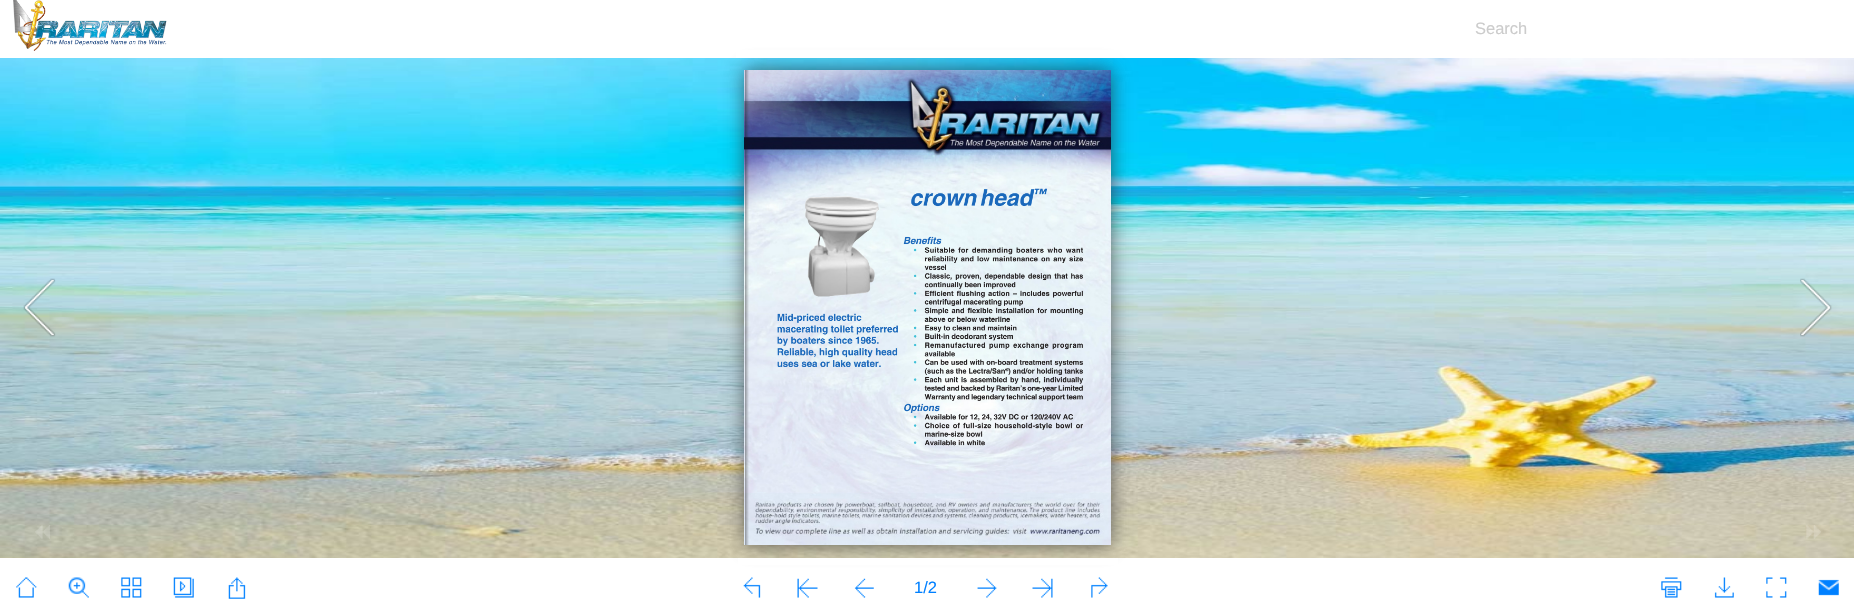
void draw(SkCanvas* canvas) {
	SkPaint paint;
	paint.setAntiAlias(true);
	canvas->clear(0xffffffff);
	canvas->drawImageRect(SkImages::DeferredFromEncodedData(SkData::MakeFromFileName("img3.png")), SkRect::MakeXYWH(0, 58, 1854, 500), SkSamplingOptions());
	paint.setColor(0xb3282828);
	paint.setMaskFilter(SkMaskFilter::MakeBlur(kNormal_SkBlurStyle, 9.5));
	canvas->drawRect(SkRect::MakeXYWH(745, 70, 366, 475), paint);
	paint.setMaskFilter(nullptr);
	paint.setColor(0xffffffff);
	canvas->drawRect(SkRect::MakeXYWH(736, 50, 384, 8), paint);
	canvas->drawImageRect(SkImages::DeferredFromEncodedData(SkData::MakeFromFileName("img1.png")), SkRect::MakeXYWH(13, 0, 154, 51), SkSamplingOptions());
	SkFont f1(fontMgr->matchFamilyStyle("Liberation Sans", SkFontStyle::Normal()), 16.5);
	f1.setSubpixel(true);
	paint.setColor(0xffcccccc);
	canvas->drawString("Search", 1475, 34, f1, paint);
	canvas->drawImageRect(SkImages::DeferredFromEncodedData(SkData::MakeFromFileName("img2.png")), SkRect::MakeXYWH(744, 70, 367, 475), SkSamplingOptions());
	canvas->drawImageRect(SkImages::DeferredFromEncodedData(SkData::MakeFromFileName("img4.png")), SkRect::MakeXYWH(23, 278, 33, 59), SkSamplingOptions());
	canvas->drawImageRect(SkImages::DeferredFromEncodedData(SkData::MakeFromFileName("img5.png")), SkRect::MakeXYWH(1800, 278, 32, 59), SkSamplingOptions());
	canvas->drawImageRect(SkImages::DeferredFromEncodedData(SkData::MakeFromFileName("img6.png")), SkRect::MakeXYWH(35, 525, 15, 14), SkSamplingOptions());
	canvas->drawImageRect(SkImages::DeferredFromEncodedData(SkData::MakeFromFileName("img7.png")), SkRect::MakeXYWH(1806, 525, 15, 14), SkSamplingOptions());
	paint.setColor(0xffffffff);
	canvas->drawRect(SkRect::MakeXYWH(738, 558, 380, 7), paint);
	canvas->drawImageRect(SkImages::DeferredFromEncodedData(SkData::MakeFromFileName("img8.png")), SkRect::MakeXYWH(16, 577, 21, 21), SkSamplingOptions());
	canvas->drawImageRect(SkImages::DeferredFromEncodedData(SkData::MakeFromFileName("img9.png")), SkRect::MakeXYWH(68, 577, 21, 21), SkSamplingOptions());
	canvas->drawImageRect(SkImages::DeferredFromEncodedData(SkData::MakeFromFileName("img10.png")), SkRect::MakeXYWH(121, 577, 21, 21), SkSamplingOptions());
	canvas->drawImageRect(SkImages::DeferredFromEncodedData(SkData::MakeFromFileName("img11.png")), SkRect::MakeXYWH(173, 577, 21, 21), SkSamplingOptions());
	canvas->drawImageRect(SkImages::DeferredFromEncodedData(SkData::MakeFromFileName("img12.png")), SkRect::MakeXYWH(228, 577, 18, 22), SkSamplingOptions());
	canvas->drawImageRect(SkImages::DeferredFromEncodedData(SkData::MakeFromFileName("img13.png")), SkRect::MakeXYWH(743, 577, 18, 21), SkSamplingOptions());
	canvas->drawImageRect(SkImages::DeferredFromEncodedData(SkData::MakeFromFileName("img14.png")), SkRect::MakeXYWH(797, 578, 21, 20), SkSamplingOptions());
	canvas->drawImageRect(SkImages::DeferredFromEncodedData(SkData::MakeFromFileName("img15.png")), SkRect::MakeXYWH(854, 578, 20, 20), SkSamplingOptions());
	paint.setColor(0xff0080ff);
	canvas->drawString("1/2", 914, 593, f1, paint);
	canvas->drawImageRect(SkImages::DeferredFromEncodedData(SkData::MakeFromFileName("img16.png")), SkRect::MakeXYWH(977, 578, 20, 20), SkSamplingOptions());
	canvas->drawImageRect(SkImages::DeferredFromEncodedData(SkData::MakeFromFileName("img17.png")), SkRect::MakeXYWH(1032, 578, 21, 20), SkSamplingOptions());
	canvas->drawImageRect(SkImages::DeferredFromEncodedData(SkData::MakeFromFileName("img18.png")), SkRect::MakeXYWH(1091, 577, 17, 21), SkSamplingOptions());
	canvas->drawImageRect(SkImages::DeferredFromEncodedData(SkData::MakeFromFileName("img19.png")), SkRect::MakeXYWH(1661, 577, 21, 21), SkSamplingOptions());
	canvas->drawImageRect(SkImages::DeferredFromEncodedData(SkData::MakeFromFileName("img20.png")), SkRect::MakeXYWH(1714, 577, 20, 21), SkSamplingOptions());
	canvas->drawImageRect(SkImages::DeferredFromEncodedData(SkData::MakeFromFileName("img21.png")), SkRect::MakeXYWH(1766, 577, 21, 21), SkSamplingOptions());
	canvas->drawImageRect(SkImages::DeferredFromEncodedData(SkData::MakeFromFileName("img22.png")), SkRect::MakeXYWH(1818, 579, 21, 17), SkSamplingOptions());
}
